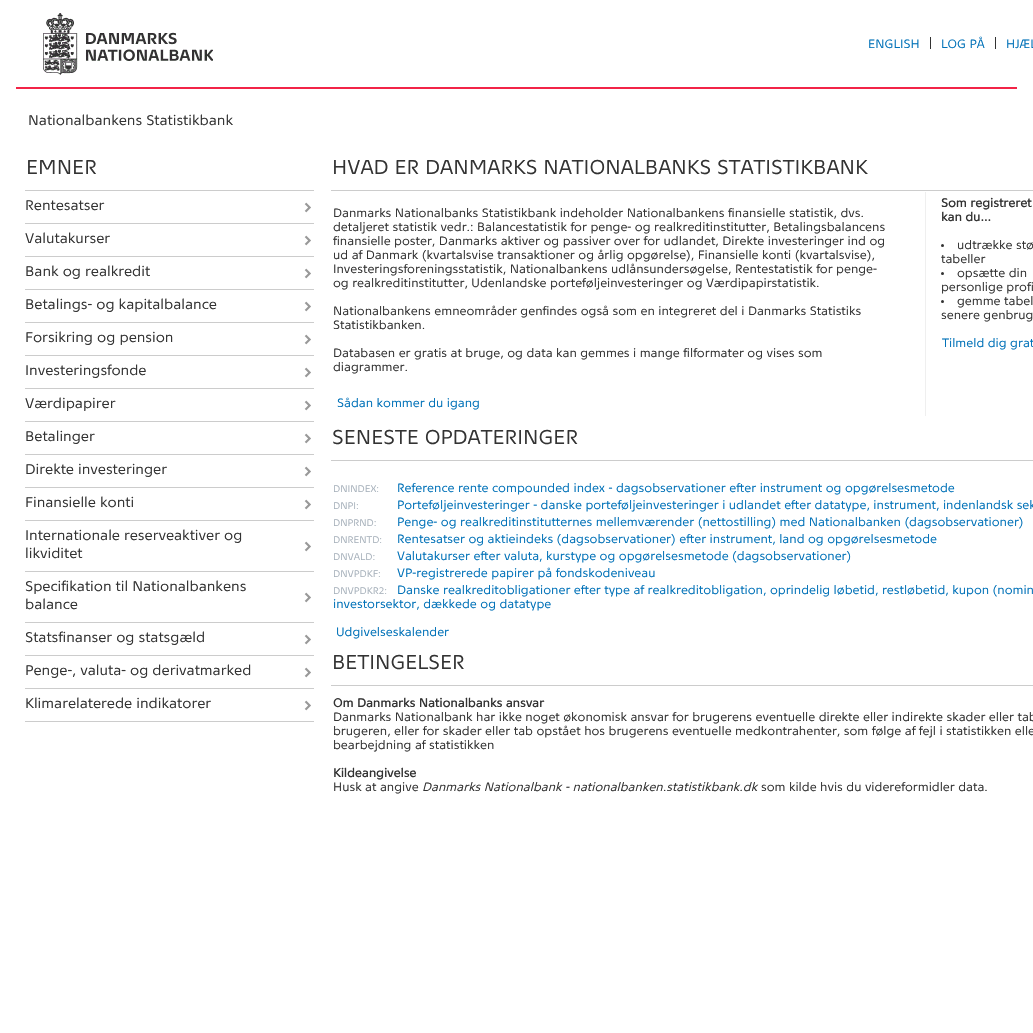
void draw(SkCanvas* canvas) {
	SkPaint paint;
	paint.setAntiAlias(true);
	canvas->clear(0xffffffff);
	paint.setColor(0xfff22447);
	canvas->drawRect(SkRect::MakeXYWH(16, 87, 1001, 2), paint);
	canvas->drawImageRect(SkImages::DeferredFromEncodedData(SkData::MakeFromFileName("img1.png")), SkRect::MakeXYWH(43, 13, 170, 62), SkSamplingOptions());
	SkFont f1(fontMgr->matchFamilyStyle("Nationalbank", SkFontStyle::Normal()), 12);
	f1.setSubpixel(true);
	paint.setColor(0xff0071b8);
	canvas->drawString("ENGLISH", 868, 48, f1, paint);
	paint.setColor(0xff333333);
	canvas->drawRect(SkRect::MakeXYWH(930, 37, 1, 12), paint);
	paint.setColor(0xff0071b8);
	canvas->drawString("LOG PÅ", 941, 48, f1, paint);
	paint.setColor(0xff333333);
	canvas->drawRect(SkRect::MakeXYWH(995, 37, 1, 12), paint);
	paint.setColor(0xff0071b8);
	canvas->drawString("HJÆL", 1006, 48, f1, paint);
	SkFont f2(fontMgr->matchFamilyStyle("Nationalbank", SkFontStyle::Normal()), 14);
	f2.setSubpixel(true);
	paint.setColor(0xff333333);
	canvas->drawString("Nationalbankens Statistikbank", 28, 125, f2, paint);
	paint.setColor(0xffcccccc);
	canvas->drawRect(SkRect::MakeXYWH(25, 190, 289, 1), paint);
	SkFont f3(fontMgr->matchFamilyStyle("Nationalbank", SkFontStyle::Normal()), 20);
	f3.setSubpixel(true);
	paint.setColor(0xff333333);
	canvas->drawString("EMNER", 26, 174, f3, paint);
	canvas->drawImageRect(SkImages::DeferredFromEncodedData(SkData::MakeFromFileName("img2.png")), SkRect::MakeXYWH(304, 202, 7, 11), SkSamplingOptions());
	paint.setColor(0xffcccccc);
	canvas->drawRect(SkRect::MakeXYWH(25, 223, 289, 1), paint);
	paint.setColor(0xff333333);
	canvas->drawString("Rentesatser", 25, 210, f2, paint);
	canvas->drawImageRect(SkImages::DeferredFromEncodedData(SkData::MakeFromFileName("img2.png")), SkRect::MakeXYWH(304, 235, 7, 11), SkSamplingOptions());
	paint.setColor(0xffcccccc);
	canvas->drawRect(SkRect::MakeXYWH(25, 256, 289, 1), paint);
	paint.setColor(0xff333333);
	canvas->drawString("Valutakurser", 25, 243, f2, paint);
	canvas->drawImageRect(SkImages::DeferredFromEncodedData(SkData::MakeFromFileName("img2.png")), SkRect::MakeXYWH(304, 268, 7, 11), SkSamplingOptions());
	paint.setColor(0xffcccccc);
	canvas->drawRect(SkRect::MakeXYWH(25, 289, 289, 1), paint);
	paint.setColor(0xff333333);
	canvas->drawString("Bank og realkredit", 25, 276, f2, paint);
	canvas->drawImageRect(SkImages::DeferredFromEncodedData(SkData::MakeFromFileName("img2.png")), SkRect::MakeXYWH(304, 301, 7, 11), SkSamplingOptions());
	paint.setColor(0xffcccccc);
	canvas->drawRect(SkRect::MakeXYWH(25, 322, 289, 1), paint);
	paint.setColor(0xff333333);
	canvas->drawString("Betalings- og kapitalbalance", 25, 309, f2, paint);
	canvas->drawImageRect(SkImages::DeferredFromEncodedData(SkData::MakeFromFileName("img2.png")), SkRect::MakeXYWH(304, 334, 7, 11), SkSamplingOptions());
	paint.setColor(0xffcccccc);
	canvas->drawRect(SkRect::MakeXYWH(25, 355, 289, 1), paint);
	paint.setColor(0xff333333);
	canvas->drawString("Forsikring og pension", 25, 342, f2, paint);
	canvas->drawImageRect(SkImages::DeferredFromEncodedData(SkData::MakeFromFileName("img2.png")), SkRect::MakeXYWH(304, 367, 7, 11), SkSamplingOptions());
	paint.setColor(0xffcccccc);
	canvas->drawRect(SkRect::MakeXYWH(25, 388, 289, 1), paint);
	paint.setColor(0xff333333);
	canvas->drawString("Investeringsfonde", 25, 375, f2, paint);
	canvas->drawImageRect(SkImages::DeferredFromEncodedData(SkData::MakeFromFileName("img2.png")), SkRect::MakeXYWH(304, 400, 7, 11), SkSamplingOptions());
	paint.setColor(0xffcccccc);
	canvas->drawRect(SkRect::MakeXYWH(25, 421, 289, 1), paint);
	paint.setColor(0xff333333);
	canvas->drawString("Værdipapirer", 25, 408, f2, paint);
	canvas->drawImageRect(SkImages::DeferredFromEncodedData(SkData::MakeFromFileName("img2.png")), SkRect::MakeXYWH(304, 433, 7, 11), SkSamplingOptions());
	paint.setColor(0xffcccccc);
	canvas->drawRect(SkRect::MakeXYWH(25, 454, 289, 1), paint);
	paint.setColor(0xff333333);
	canvas->drawString("Betalinger", 25, 441, f2, paint);
	canvas->drawImageRect(SkImages::DeferredFromEncodedData(SkData::MakeFromFileName("img2.png")), SkRect::MakeXYWH(304, 466, 7, 11), SkSamplingOptions());
	paint.setColor(0xffcccccc);
	canvas->drawRect(SkRect::MakeXYWH(25, 487, 289, 1), paint);
	paint.setColor(0xff333333);
	canvas->drawString("Direkte investeringer", 25, 474, f2, paint);
	canvas->drawImageRect(SkImages::DeferredFromEncodedData(SkData::MakeFromFileName("img2.png")), SkRect::MakeXYWH(304, 499, 7, 11), SkSamplingOptions());
	paint.setColor(0xffcccccc);
	canvas->drawRect(SkRect::MakeXYWH(25, 520, 289, 1), paint);
	paint.setColor(0xff333333);
	canvas->drawString("Finansielle konti", 25, 507, f2, paint);
	canvas->drawImageRect(SkImages::DeferredFromEncodedData(SkData::MakeFromFileName("img2.png")), SkRect::MakeXYWH(304, 541, 7, 11), SkSamplingOptions());
	paint.setColor(0xffcccccc);
	canvas->drawRect(SkRect::MakeXYWH(25, 571, 289, 1), paint);
	paint.setColor(0xff333333);
	canvas->drawString("Internationale reserveaktiver og", 25, 540, f2, paint);
	canvas->drawString("likviditet", 25, 558, f2, paint);
	canvas->drawImageRect(SkImages::DeferredFromEncodedData(SkData::MakeFromFileName("img2.png")), SkRect::MakeXYWH(304, 592, 7, 11), SkSamplingOptions());
	paint.setColor(0xffcccccc);
	canvas->drawRect(SkRect::MakeXYWH(25, 622, 289, 1), paint);
	paint.setColor(0xff333333);
	canvas->drawString("Specifikation til Nationalbankens", 25, 591, f2, paint);
	canvas->drawString("balance", 25, 609, f2, paint);
	canvas->drawImageRect(SkImages::DeferredFromEncodedData(SkData::MakeFromFileName("img2.png")), SkRect::MakeXYWH(304, 634, 7, 11), SkSamplingOptions());
	paint.setColor(0xffcccccc);
	canvas->drawRect(SkRect::MakeXYWH(25, 655, 289, 1), paint);
	paint.setColor(0xff333333);
	canvas->drawString("Statsfinanser og statsgæld", 25, 642, f2, paint);
	canvas->drawImageRect(SkImages::DeferredFromEncodedData(SkData::MakeFromFileName("img2.png")), SkRect::MakeXYWH(304, 667, 7, 11), SkSamplingOptions());
	paint.setColor(0xffcccccc);
	canvas->drawRect(SkRect::MakeXYWH(25, 688, 289, 1), paint);
	paint.setColor(0xff333333);
	canvas->drawString("Penge-, valuta- og derivatmarked", 25, 675, f2, paint);
	canvas->drawImageRect(SkImages::DeferredFromEncodedData(SkData::MakeFromFileName("img2.png")), SkRect::MakeXYWH(304, 700, 7, 11), SkSamplingOptions());
	paint.setColor(0xffcccccc);
	canvas->drawRect(SkRect::MakeXYWH(25, 721, 289, 1), paint);
	paint.setColor(0xff333333);
	canvas->drawString("Klimarelaterede indikatorer", 25, 708, f2, paint);
	paint.setColor(0xffcccccc);
	canvas->drawRect(SkRect::MakeXYWH(331, 190, 702, 1), paint);
	paint.setColor(0xff333333);
	canvas->drawString("HVAD ER DANMARKS NATIONALBANKS STATISTIKBANK", 332, 174, f3, paint);
	canvas->drawString("Danmarks Nationalbanks Statistikbank indeholder Nationalbankens finansielle statistik, dvs.", 333, 217, f1, paint);
	canvas->drawString("detaljeret statistik vedr.: Balancestatistik for penge- og realkreditinstitutter, Betalingsbalancens", 333, 231, f1, paint);
	canvas->drawString("finansielle poster, Danmarks aktiver og passiver over for udlandet, Direkte investeringer ind og", 333, 245, f1, paint);
	canvas->drawString("ud af Danmark (kvartalsvise transaktioner og årlig opgørelse), Finansielle konti (kvartalsvise),", 333, 259, f1, paint);
	canvas->drawString("Investeringsforeningsstatistik, Nationalbankens udlånsundersøgelse, Rentestatistik for penge-", 333, 273, f1, paint);
	canvas->drawString("og realkreditinstitutter, Udenlandske porteføljeinvesteringer og Værdipapirstatistik.", 333, 287, f1, paint);
	canvas->drawString("Nationalbankens emneområder genfindes også som en integreret del i Danmarks Statistiks", 333, 315, f1, paint);
	canvas->drawString("Statistikbanken.", 333, 329, f1, paint);
	canvas->drawString("Databasen er gratis at bruge, og data kan gemmes i mange filformater og vises som", 333, 357, f1, paint);
	canvas->drawString("diagrammer.", 333, 371, f1, paint);
	paint.setColor(0xff0071b8);
	canvas->drawString("Sådan kommer du igang", 337, 407, f1, paint);
	paint.setColor(0xffefefef);
	canvas->drawRect(SkRect::MakeXYWH(925, 192, 1, 224), paint);
	SkFont f4(fontMgr->matchFamilyStyle("Nationalbank", SkFontStyle::Bold()), 12);
	f4.setSubpixel(true);
	paint.setColor(0xff333333);
	canvas->drawString("Som registreret", 941, 207, f4, paint);
	canvas->drawString("kan du...", 941, 221, f4, paint);
	canvas->drawCircle(942.5, 245.5, 1.5, paint);
	canvas->drawString("udtrække stø", 957, 249, f1, paint);
	canvas->drawString("tabeller", 941, 263, f1, paint);
	canvas->drawCircle(942.5, 273.5, 1.5, paint);
	canvas->drawString("opsætte din", 957, 277, f1, paint);
	canvas->drawString("personlige profi", 941, 291, f1, paint);
	canvas->drawCircle(942.5, 301.5, 1.5, paint);
	canvas->drawString("gemme tabel", 957, 305, f1, paint);
	canvas->drawString("senere genbrug", 941, 319, f1, paint);
	paint.setColor(0xff0071b8);
	canvas->drawString("Tilmeld dig grat", 942, 347, f1, paint);
	paint.setColor(0xffcccccc);
	canvas->drawRect(SkRect::MakeXYWH(331, 460, 702, 1), paint);
	paint.setColor(0xff333333);
	canvas->drawString("SENESTE OPDATERINGER", 332, 444, f3, paint);
	SkFont f5(fontMgr->matchFamilyStyle("Nationalbank", SkFontStyle::Normal()), 9.5);
	f5.setSubpixel(true);
	paint.setColor(0xffa7b1bb);
	canvas->drawString("DNINDEX:", 333, 492, f5, paint);
	paint.setColor(0xff0071b8);
	canvas->drawString("Reference rente compounded index - dagsobservationer efter instrument og opgørelsesmetode", 397, 492, f1, paint);
	paint.setColor(0xffa7b1bb);
	canvas->drawString("DNPI:", 333, 509, f5, paint);
	paint.setColor(0xff0071b8);
	canvas->drawString("Porteføljeinvesteringer - danske porteføljeinvesteringer i udlandet efter datatype, instrument, indenlandsk sek", 397, 509, f1, paint);
	paint.setColor(0xffa7b1bb);
	canvas->drawString("DNPRND:", 333, 526, f5, paint);
	paint.setColor(0xff0071b8);
	canvas->drawString("Penge- og realkreditinstitutternes mellemværender (nettostilling) med Nationalbanken (dagsobservationer)", 397, 526, f1, paint);
	paint.setColor(0xffa7b1bb);
	canvas->drawString("DNRENTD:", 333, 543, f5, paint);
	paint.setColor(0xff0071b8);
	canvas->drawString("Rentesatser og aktieindeks (dagsobservationer) efter instrument, land og opgørelsesmetode", 397, 543, f1, paint);
	paint.setColor(0xffa7b1bb);
	canvas->drawString("DNVALD:", 333, 560, f5, paint);
	paint.setColor(0xff0071b8);
	canvas->drawString("Valutakurser efter valuta, kurstype og opgørelsesmetode (dagsobservationer)", 397, 560, f1, paint);
	paint.setColor(0xffa7b1bb);
	canvas->drawString("DNVPDKF:", 333, 577, f5, paint);
	paint.setColor(0xff0071b8);
	canvas->drawString("VP-registrerede papirer på fondskodeniveau", 397, 577, f1, paint);
	paint.setColor(0xffa7b1bb);
	canvas->drawString("DNVPDKR2:", 333, 594, f5, paint);
	paint.setColor(0xff0071b8);
	canvas->drawString("Danske realkreditobligationer efter type af realkreditobligation, oprindelig løbetid, restløbetid, kupon (nomin", 397, 594, f1, paint);
	canvas->drawString("investorsektor, dækkede og datatype", 333, 608, f1, paint);
	canvas->drawString("Udgivelseskalender", 336, 636, f1, paint);
	paint.setColor(0xffcccccc);
	canvas->drawRect(SkRect::MakeXYWH(331, 685, 702, 1), paint);
	paint.setColor(0xff333333);
	canvas->drawString("BETINGELSER", 332, 669, f3, paint);
	canvas->drawString("Om Danmarks Nationalbanks ansvar", 333, 707, f4, paint);
	canvas->drawString("Danmarks Nationalbank har ikke noget økonomisk ansvar for brugerens eventuelle direkte eller indirekte skader eller tab", 333, 721, f1, paint);
	canvas->drawString("brugeren, eller for skader eller tab opstået hos brugerens eventuelle medkontrahenter, som følge af fejl i statistikken elle", 333, 735, f1, paint);
	canvas->drawString("bearbejdning af statistikken", 333, 749, f1, paint);
	canvas->drawString("Kildeangivelse", 333, 777, f4, paint);
	canvas->drawString("Husk at angive", 333, 791, f1, paint);
	SkFont f6(fontMgr->matchFamilyStyle("Nationalbank", SkFontStyle::Italic()), 12);
	f6.setSubpixel(true);
	canvas->drawString("Danmarks Nationalbank - nationalbanken.statistikbank.dk", 422, 791, f6, paint);
	canvas->drawString("som kilde hvis du videreformidler data.", 761, 791, f1, paint);
}
